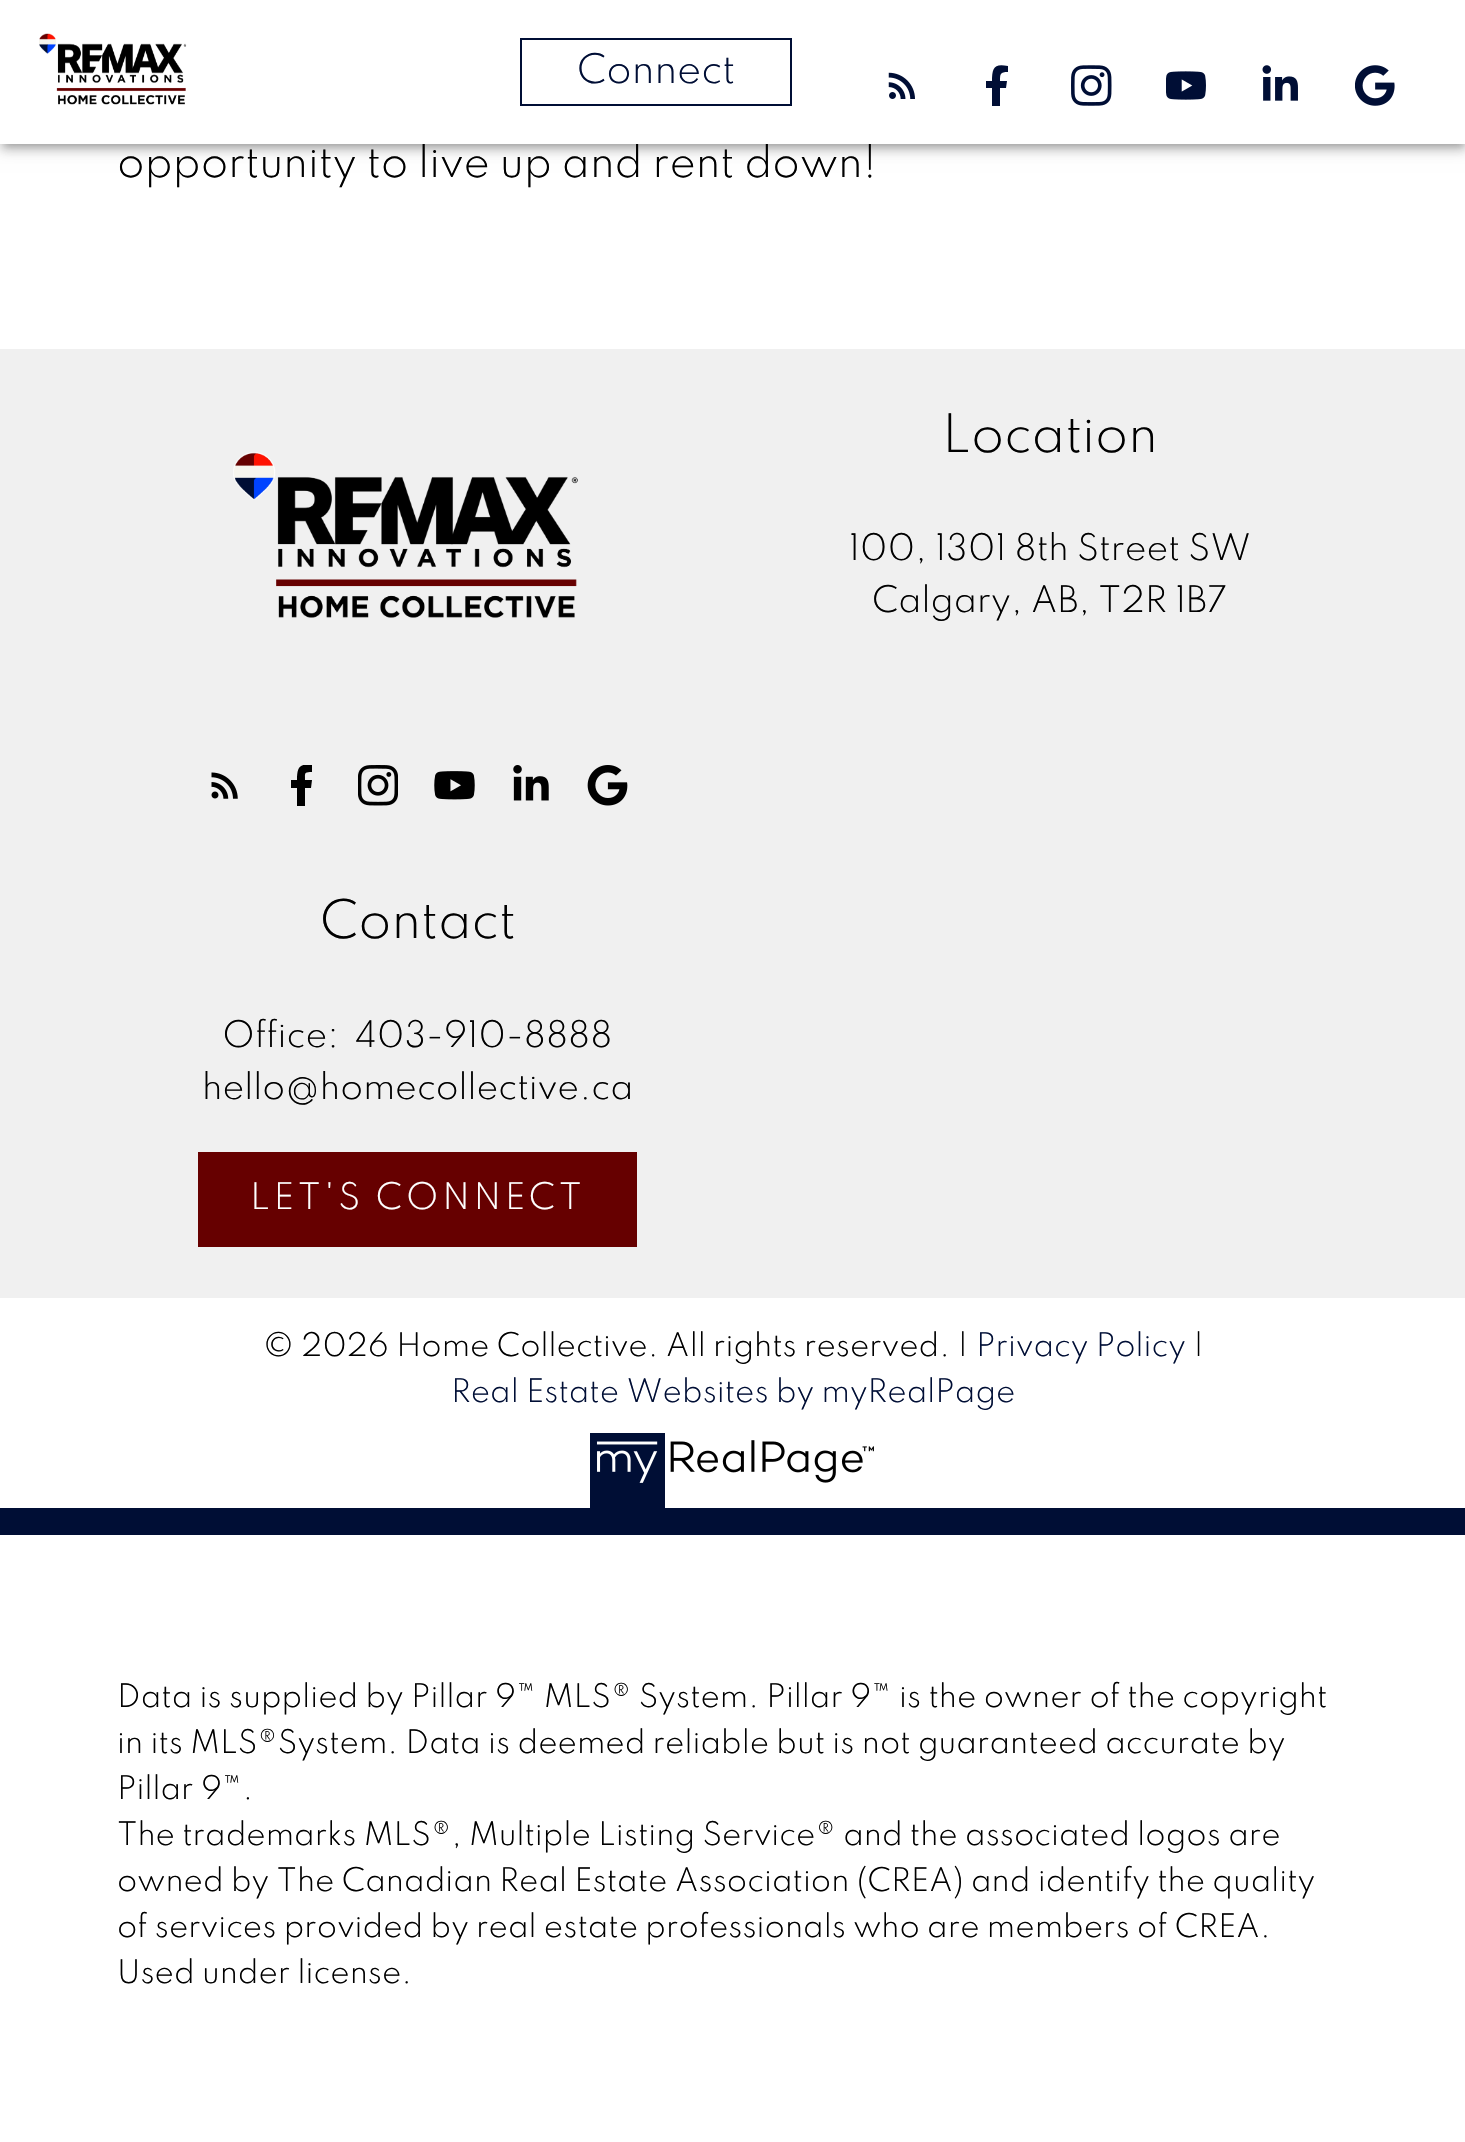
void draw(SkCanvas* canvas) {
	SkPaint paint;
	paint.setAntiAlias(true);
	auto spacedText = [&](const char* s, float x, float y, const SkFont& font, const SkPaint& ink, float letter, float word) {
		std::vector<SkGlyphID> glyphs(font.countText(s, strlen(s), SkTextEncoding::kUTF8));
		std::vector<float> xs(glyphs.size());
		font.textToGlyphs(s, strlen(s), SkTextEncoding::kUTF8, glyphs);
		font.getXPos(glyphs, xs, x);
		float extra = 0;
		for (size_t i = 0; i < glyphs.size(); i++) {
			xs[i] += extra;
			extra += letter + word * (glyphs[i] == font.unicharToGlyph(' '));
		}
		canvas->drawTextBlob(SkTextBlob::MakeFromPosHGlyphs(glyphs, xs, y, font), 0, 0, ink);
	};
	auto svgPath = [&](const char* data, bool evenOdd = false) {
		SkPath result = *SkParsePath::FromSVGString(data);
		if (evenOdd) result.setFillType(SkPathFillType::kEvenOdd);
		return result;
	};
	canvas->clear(0xffffffff);
	paint.setColor(0x1f000000);
	paint.setMaskFilter(SkMaskFilter::MakeBlur(kNormal_SkBlurStyle, 9));
	canvas->drawRect(SkRect::MakeXYWH(0, 2, 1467, 144), paint);
	paint.setMaskFilter(nullptr);
	paint.setColor(0x24000000);
	paint.setMaskFilter(SkMaskFilter::MakeBlur(kNormal_SkBlurStyle, 4.5));
	canvas->drawRect(SkRect::MakeXYWH(0, 7, 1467, 144), paint);
	paint.setMaskFilter(nullptr);
	paint.setColor(0x33000000);
	paint.setMaskFilter(SkMaskFilter::MakeBlur(kNormal_SkBlurStyle, 3.5));
	canvas->drawRect(SkRect::MakeXYWH(5, 11, 1458, 135), paint);
	paint.setMaskFilter(nullptr);
	SkFont f1(fontMgr->matchFamilyStyle("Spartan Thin", SkFontStyle(300, SkFontStyle::kNormal_Width, SkFontStyle::kUpright_Slant)), 39.1);
	f1.setSubpixel(true);
	paint.setColor(0xff000000);
	canvas->drawString("opportunity to live up and rent down!", 117, 177, f1, paint);
	paint.setColor(0xffffffff);
	canvas->drawRect(SkRect::MakeXYWH(0, 0, 1465, 144), paint);
	canvas->drawImageRect(SkImages::DeferredFromEncodedData(SkData::MakeFromFileName("img1.png")), SkRect::MakeXYWH(39, 33, 148, 72), SkSamplingOptions());
	paint.setStroke(true);
	paint.setStrokeWidth(2);
	paint.setColor(0xff000e35);
	canvas->drawRect(SkRect::MakeXYWH(521, 39, 270, 66), paint);
	SkFont f2(fontMgr->matchFamilyStyle("Spartan Thin", SkFontStyle(300, SkFontStyle::kNormal_Width, SkFontStyle::kUpright_Slant)), 36);
	f2.setSubpixel(true);
	paint.setStroke(false);
	canvas->drawString("Connect", 577, 83, f2, paint);
	canvas->drawImageRect(SkImages::DeferredFromEncodedData(SkData::MakeFromFileName("img2.png")), SkRect::MakeXYWH(888, 72, 27, 27), SkSamplingOptions());
	canvas->drawPath(svgPath("M1006 88L1007 81H1000C1000 74 1000 72 1008 72V66C994 63 992 68 992 81H986V88H992V106H1000V88Z"), paint);
	canvas->drawImageRect(SkImages::DeferredFromEncodedData(SkData::MakeFromFileName("img3.png")), SkRect::MakeXYWH(1071, 65, 41, 41), SkSamplingOptions());
	canvas->drawImageRect(SkImages::DeferredFromEncodedData(SkData::MakeFromFileName("img4.png")), SkRect::MakeXYWH(1166, 71, 40, 29), SkSamplingOptions());
	canvas->drawImageRect(SkImages::DeferredFromEncodedData(SkData::MakeFromFileName("img5.png")), SkRect::MakeXYWH(1262, 65, 36, 36), SkSamplingOptions());
	canvas->drawImageRect(SkImages::DeferredFromEncodedData(SkData::MakeFromFileName("img6.png")), SkRect::MakeXYWH(1355, 65, 40, 41), SkSamplingOptions());
	paint.setColor(0xfff0f0f0);
	canvas->drawRect(SkRect::MakeXYWH(0, 349, 1465, 949), paint);
	canvas->drawImageRect(SkImages::DeferredFromEncodedData(SkData::MakeFromFileName("img7.png")), SkRect::MakeXYWH(233, 452, 345, 166), SkSamplingOptions());
	canvas->drawImageRect(SkImages::DeferredFromEncodedData(SkData::MakeFromFileName("img8.png")), SkRect::MakeXYWH(211, 772, 27, 27), SkSamplingOptions());
	canvas->save();
	canvas->clipRect(SkRect::MakeXYWH(281, 765, 41, 41));
	paint.setColor(0xff000000);
	canvas->drawPath(svgPath("M311 788L312 780H305C305 773 304 772 312 772V765C299 763 297 768 297 780H291V788H297V806H305V788Z"), paint);
	canvas->restore();
	canvas->drawImageRect(SkImages::DeferredFromEncodedData(SkData::MakeFromFileName("img9.png")), SkRect::MakeXYWH(358, 765, 40, 41), SkSamplingOptions());
	canvas->drawImageRect(SkImages::DeferredFromEncodedData(SkData::MakeFromFileName("img10.png")), SkRect::MakeXYWH(434, 771, 41, 29), SkSamplingOptions());
	canvas->drawImageRect(SkImages::DeferredFromEncodedData(SkData::MakeFromFileName("img11.png")), SkRect::MakeXYWH(513, 765, 36, 36), SkSamplingOptions());
	canvas->drawImageRect(SkImages::DeferredFromEncodedData(SkData::MakeFromFileName("img12.png")), SkRect::MakeXYWH(587, 765, 41, 41), SkSamplingOptions());
	SkFont f3(fontMgr->matchFamilyStyle("Spartan Thin", SkFontStyle(300, SkFontStyle::kNormal_Width, SkFontStyle::kUpright_Slant)), 47);
	f3.setSubpixel(true);
	canvas->drawString("Location", 942, 452, f3, paint);
	SkFont f4(fontMgr->matchFamilyStyle("Spartan Thin", SkFontStyle(300, SkFontStyle::kNormal_Width, SkFontStyle::kUpright_Slant)), 32.4);
	f4.setSubpixel(true);
	canvas->drawString("100, 1301 8th Street SW", 849, 560, f4, paint);
	canvas->drawString("Calgary, AB, T2R 1B7", 872, 612, f4, paint);
	canvas->drawString("Contact", 320, 938, f3, paint);
	canvas->drawString("Office:", 222, 1047, f4, paint);
	canvas->drawString("403-910-8888", 355, 1047, f4, paint);
	canvas->drawString("hello@homecollective.ca", 202, 1099, f4, paint);
	paint.setColor(0xff660000);
	canvas->drawRect(SkRect::MakeXYWH(198, 1152, 439, 95), paint);
	paint.setColor(0xffffffff);
	spacedText("LET'S CONNECT", 250, 1209, f4, paint, 3.6, 0);
	SkFont f5(fontMgr->matchFamilyStyle("Spartan Thin", SkFontStyle(300, SkFontStyle::kNormal_Width, SkFontStyle::kUpright_Slant)), 28.8);
	f5.setSubpixel(true);
	paint.setColor(0xff000000);
	canvas->drawString("© 2026 Home Collective. All rights reserved. |", 263, 1356, f5, paint);
	paint.setColor(0xff000e35);
	canvas->drawString("Privacy Policy", 976, 1356, f5, paint);
	paint.setColor(0xff000000);
	canvas->drawString("|", 1193, 1356, f5, paint);
	paint.setColor(0xff000e35);
	canvas->drawString("Real Estate Websites by myRealPage", 451, 1402, f5, paint);
	canvas->drawImageRect(SkImages::DeferredFromEncodedData(SkData::MakeFromFileName("img13.png")), SkRect::MakeXYWH(590, 1433, 284, 75), SkSamplingOptions());
	canvas->drawRect(SkRect::MakeXYWH(0, 1508, 1465, 27), paint);
	paint.setColor(0xff000000);
	canvas->drawString("Data is supplied by Pillar 9™ MLS® System. Pillar 9™ is the owner of the copyright", 117, 1707, f5, paint);
	canvas->drawString("in its MLS®System. Data is deemed reliable but is not guaranteed accurate by", 117, 1753, f5, paint);
	canvas->drawString("Pillar 9™.", 117, 1799, f5, paint);
	canvas->drawString("The trademarks MLS®, Multiple Listing Service® and the associated logos are", 117, 1845, f5, paint);
	canvas->drawString("owned by The Canadian Real Estate Association (CREA) and identify the quality", 117, 1891, f5, paint);
	canvas->drawString("of services provided by real estate professionals who are members of CREA.", 117, 1937, f5, paint);
	canvas->drawString("Used under license.", 117, 1983, f5, paint);
}
